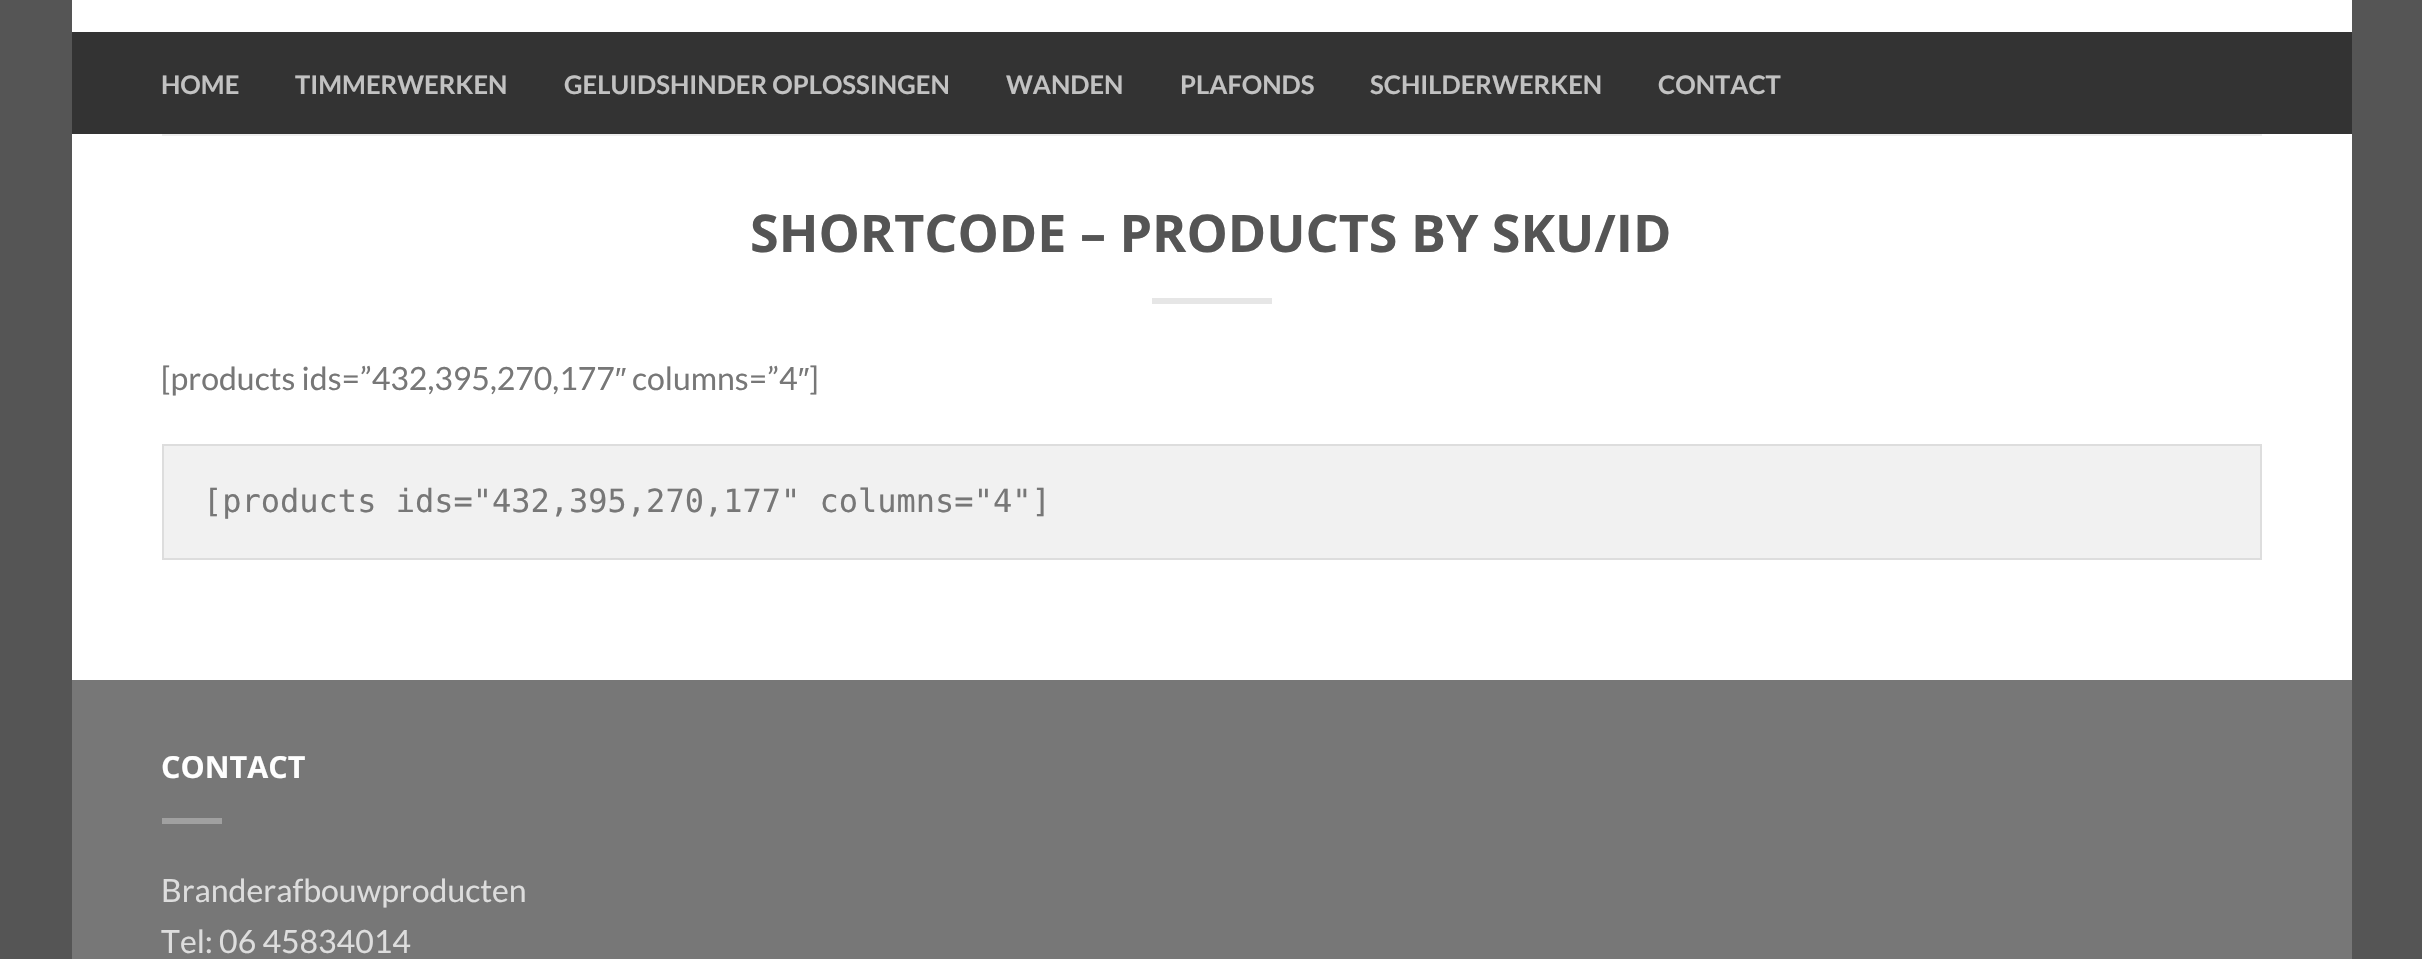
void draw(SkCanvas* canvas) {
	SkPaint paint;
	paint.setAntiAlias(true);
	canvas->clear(0xff555555);
	paint.setColor(0xffffffff);
	canvas->drawRect(SkRect::MakeXYWH(72, 0, 2280, 680), paint);
	paint.setColor(0xff333333);
	canvas->drawRect(SkRect::MakeXYWH(72, 32, 2280, 102), paint);
	SkFont f1(fontMgr->matchFamilyStyle("Lato", SkFontStyle::Bold()), 25.6);
	f1.setSubpixel(true);
	paint.setColor(0xffc2c2c2);
	canvas->drawString("HOME", 161, 94, f1, paint);
	canvas->drawString("TIMMERWERKEN", 295, 94, f1, paint);
	canvas->drawString("GELUIDSHINDER OPLOSSINGEN", 564, 94, f1, paint);
	canvas->drawString("WANDEN", 1006, 94, f1, paint);
	canvas->drawString("PLAFONDS", 1180, 94, f1, paint);
	canvas->drawString("SCHILDERWERKEN", 1370, 94, f1, paint);
	canvas->drawString("CONTACT", 1658, 94, f1, paint);
	paint.setColor(0xffeeeeee);
	canvas->drawRect(SkRect::MakeXYWH(162, 134, 2100, 2), paint);
	SkFont f2(fontMgr->matchFamilyStyle("Open Sans", SkFontStyle::Bold()), 52);
	f2.setSubpixel(true);
	paint.setColor(0xff555555);
	canvas->drawString("SHORTCODE – PRODUCTS BY SKU/ID", 750, 252, f2, paint);
	paint.setColor(0xffe6e6e6);
	canvas->drawRect(SkRect::MakeXYWH(1152, 298, 120, 6), paint);
	SkFont f3(fontMgr->matchFamilyStyle("Lato", SkFontStyle::Normal()), 32);
	f3.setSubpixel(true);
	paint.setColor(0xff777777);
	canvas->drawString("[products ids=”432,395,270,177", 161, 390, f3, paint);
	SkFont f4(fontMgr->matchFamilyStyle("Liberation Sans", SkFontStyle::Normal()), 32);
	f4.setSubpixel(true);
	canvas->drawString("″", 615, 390, f4, paint);
	canvas->drawString("columns=”4", 632, 390, f3, paint);
	canvas->drawString("″", 798, 390, f4, paint);
	canvas->drawString("]", 809, 390, f3, paint);
	paint.setColor(0xfff1f1f1);
	canvas->drawRect(SkRect::MakeXYWH(163, 445, 2098, 114), paint);
	paint.setStroke(true);
	paint.setStrokeWidth(2);
	paint.setColor(0xffdddddd);
	canvas->drawRect(SkRect::MakeXYWH(163, 445, 2098, 114), paint);
	SkFont f5(fontMgr->matchFamilyStyle("DejaVu Sans Mono", SkFontStyle::Normal()), 32);
	f5.setSubpixel(true);
	paint.setStroke(false);
	paint.setColor(0xff777777);
	canvas->drawString("[products ids=\"432,395,270,177\" columns=\"4\"]", 203, 512, f5, paint);
	canvas->drawRect(SkRect::MakeXYWH(72, 680, 2280, 279), paint);
	SkFont f6(fontMgr->matchFamilyStyle("Open Sans", SkFontStyle::Bold()), 30.5);
	f6.setSubpixel(true);
	paint.setColor(0xffffffff);
	canvas->drawString("CONTACT", 161, 778, f6, paint);
	paint.setColor(0xffa0a0a0);
	canvas->drawRect(SkRect::MakeXYWH(162, 818, 60, 6), paint);
	paint.setColor(0xffdddddd);
	canvas->drawString("Branderafbouwproducten", 161, 902, f3, paint);
	canvas->drawString("Tel: 06 45834014", 161, 953, f3, paint);
}
